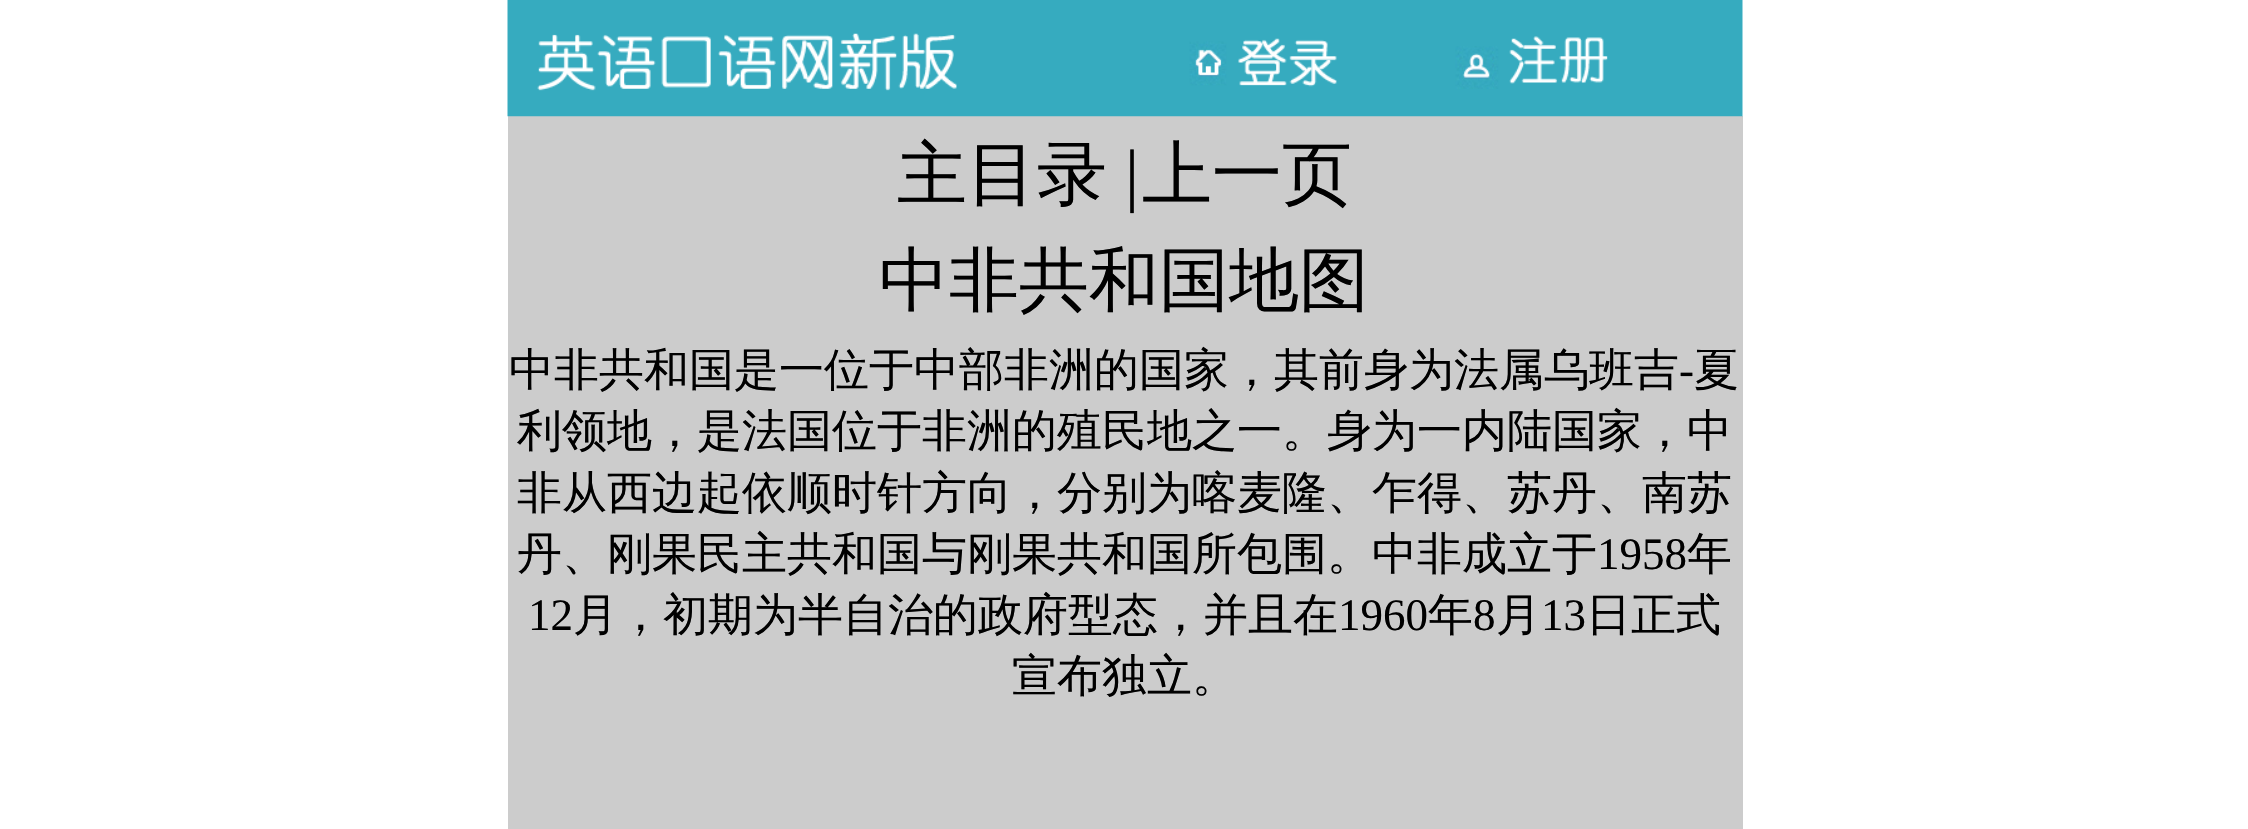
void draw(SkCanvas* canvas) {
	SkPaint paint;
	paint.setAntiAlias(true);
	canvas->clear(0xffffffff);
	paint.setColor(0xffcccccc);
	canvas->drawRect(SkRect::MakeXYWH(508, 116, 1235, 713), paint);
	canvas->drawImageRect(SkImages::DeferredFromEncodedData(SkData::MakeFromFileName("img1.png")), SkRect::MakeXYWH(507, 0, 1236, 117), SkSamplingOptions());
	SkFont f1(fontMgr->matchFamilyStyle("WenQuanYi Zen Hei", SkFontStyle(500, SkFontStyle::kNormal_Width, SkFontStyle::kUpright_Slant)), 70);
	f1.setSubpixel(true);
	paint.setColor(0xff000000);
	canvas->drawString("主目录", 897, 198, f1, paint);
	SkFont f2(fontMgr->matchFamilyStyle("Liberation Serif", SkFontStyle::Normal()), 70);
	f2.setSubpixel(true);
	canvas->drawString("|", 1125, 198, f2, paint);
	canvas->drawString("上一页", 1142, 198, f1, paint);
	canvas->drawString("中非共和国地图", 879, 304, f1, paint);
	SkFont f3(fontMgr->matchFamilyStyle("WenQuanYi Zen Hei", SkFontStyle(500, SkFontStyle::kNormal_Width, SkFontStyle::kUpright_Slant)), 45);
	f3.setSubpixel(true);
	canvas->drawString("中非共和国是一位于中部非洲的国家，其前身为法属乌班吉", 509, 385, f3, paint);
	SkFont f4(fontMgr->matchFamilyStyle("Liberation Serif", SkFontStyle::Normal()), 45);
	f4.setSubpixel(true);
	canvas->drawString("-", 1679, 385, f4, paint);
	canvas->drawString("夏", 1694, 385, f3, paint);
	canvas->drawString("利领地，是法国位于非洲的殖民地之一。身为一内陆国家，中", 517, 446, f3, paint);
	canvas->drawString("非从西边起依顺时针方向，分别为喀麦隆、乍得、苏丹、南苏", 517, 508, f3, paint);
	canvas->drawString("丹、刚果民主共和国与刚果共和国所包围。中非成立于", 517, 569, f3, paint);
	canvas->drawString("1958", 1597, 569, f4, paint);
	canvas->drawString("年", 1687, 569, f3, paint);
	canvas->drawString("12", 528, 630, f4, paint);
	canvas->drawString("月，初期为半自治的政府型态，并且在", 573, 630, f3, paint);
	canvas->drawString("1960", 1338, 630, f4, paint);
	canvas->drawString("年", 1428, 630, f3, paint);
	canvas->drawString("8", 1473, 630, f4, paint);
	canvas->drawString("月", 1496, 630, f3, paint);
	canvas->drawString("13", 1541, 630, f4, paint);
	canvas->drawString("日正式", 1586, 630, f3, paint);
	canvas->drawString("宣布独立。", 1012, 691, f3, paint);
}
